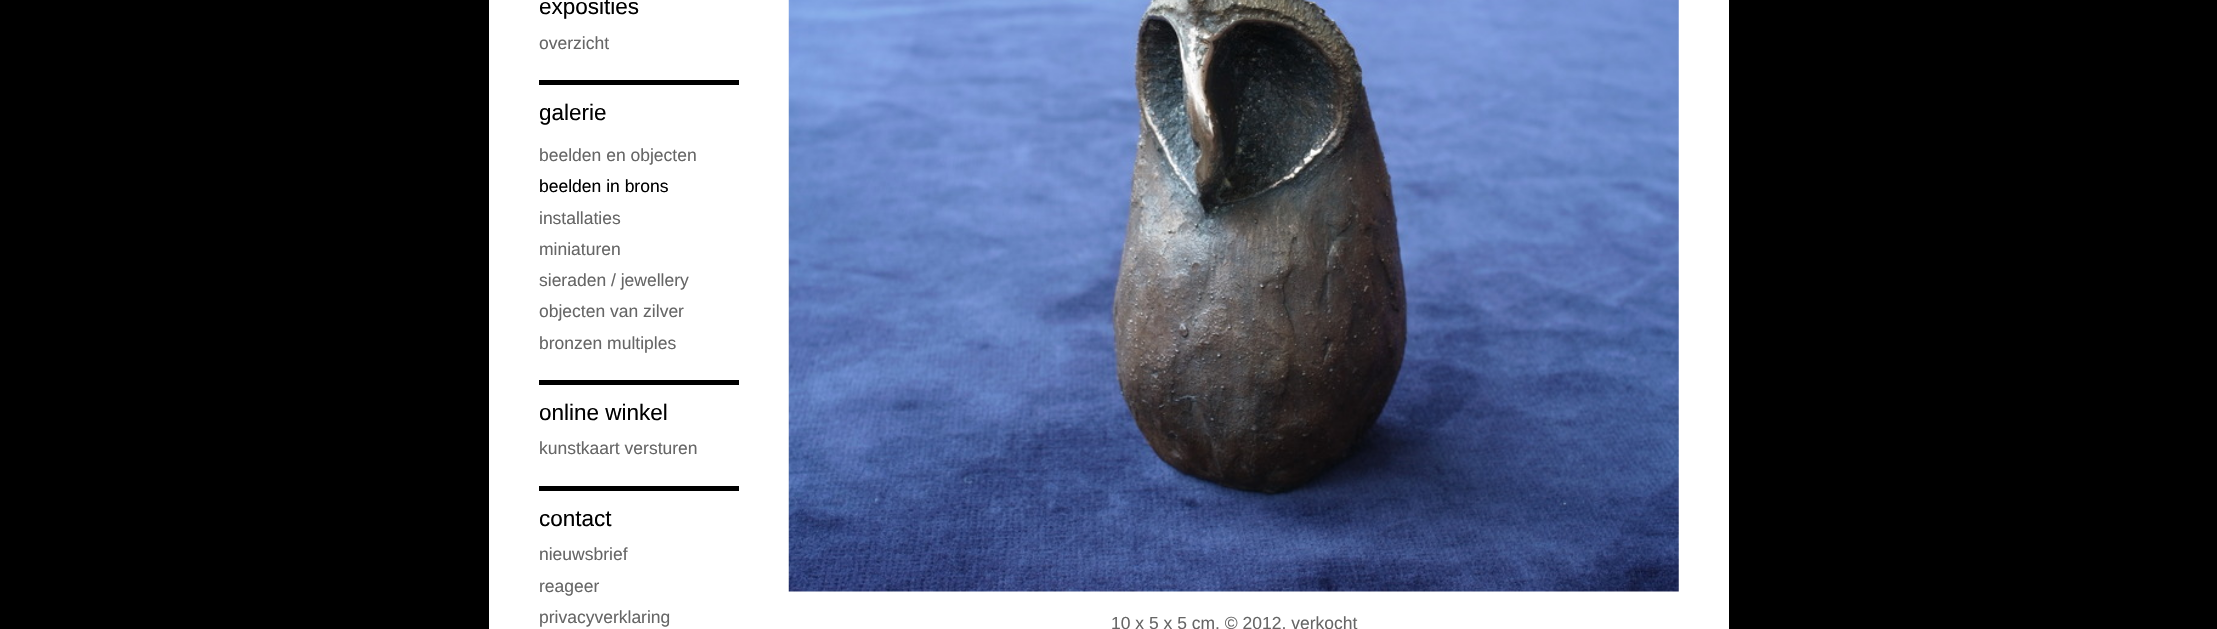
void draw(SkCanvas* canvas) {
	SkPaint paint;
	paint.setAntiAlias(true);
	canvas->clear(0xff000000);
	paint.setColor(0xffffffff);
	canvas->drawRect(SkRect::MakeXYWH(489, 0, 1240, 629), paint);
	SkFont f1(fontMgr->matchFamilyStyle("Liberation Sans", SkFontStyle::Normal()), 22.5);
	f1.setSubpixel(true);
	paint.setColor(0xff000000);
	canvas->drawString("exposities", 539, 14, f1, paint);
	SkFont f2(fontMgr->matchFamilyStyle("Liberation Sans", SkFontStyle::Normal()), 17.5);
	f2.setSubpixel(true);
	paint.setColor(0xff666666);
	canvas->drawString("overzicht", 539, 49, f2, paint);
	paint.setColor(0xff000000);
	canvas->drawRect(SkRect::MakeXYWH(539, 80, 200, 5), paint);
	canvas->drawString("galerie", 539, 120, f1, paint);
	paint.setColor(0xff666666);
	canvas->drawString("beelden en objecten", 539, 161, f2, paint);
	paint.setColor(0xff000000);
	canvas->drawString("beelden in brons", 539, 192, f2, paint);
	paint.setColor(0xff666666);
	canvas->drawString("installaties", 539, 224, f2, paint);
	canvas->drawString("miniaturen", 539, 255, f2, paint);
	canvas->drawString("sieraden / jewellery", 539, 286, f2, paint);
	canvas->drawString("objecten van zilver", 539, 317, f2, paint);
	canvas->drawString("bronzen multiples", 539, 349, f2, paint);
	paint.setColor(0xff000000);
	canvas->drawRect(SkRect::MakeXYWH(539, 380, 200, 5), paint);
	canvas->drawString("online winkel", 539, 420, f1, paint);
	paint.setColor(0xff666666);
	canvas->drawString("kunstkaart versturen", 539, 454, f2, paint);
	paint.setColor(0xff000000);
	canvas->drawRect(SkRect::MakeXYWH(539, 486, 200, 5), paint);
	canvas->drawString("contact", 539, 526, f1, paint);
	paint.setColor(0xff666666);
	canvas->drawString("nieuwsbrief", 539, 560, f2, paint);
	canvas->drawString("reageer", 539, 592, f2, paint);
	canvas->drawString("privacyverklaring", 539, 623, f2, paint);
	canvas->drawImageRect(SkImages::DeferredFromEncodedData(SkData::MakeFromFileName("img1.png")), SkRect::MakeXYWH(788, 0, 891, 592), SkSamplingOptions());
	canvas->drawString("10 x 5 x 5 cm, © 2012, verkocht", 1111, 629, f2, paint);
}
